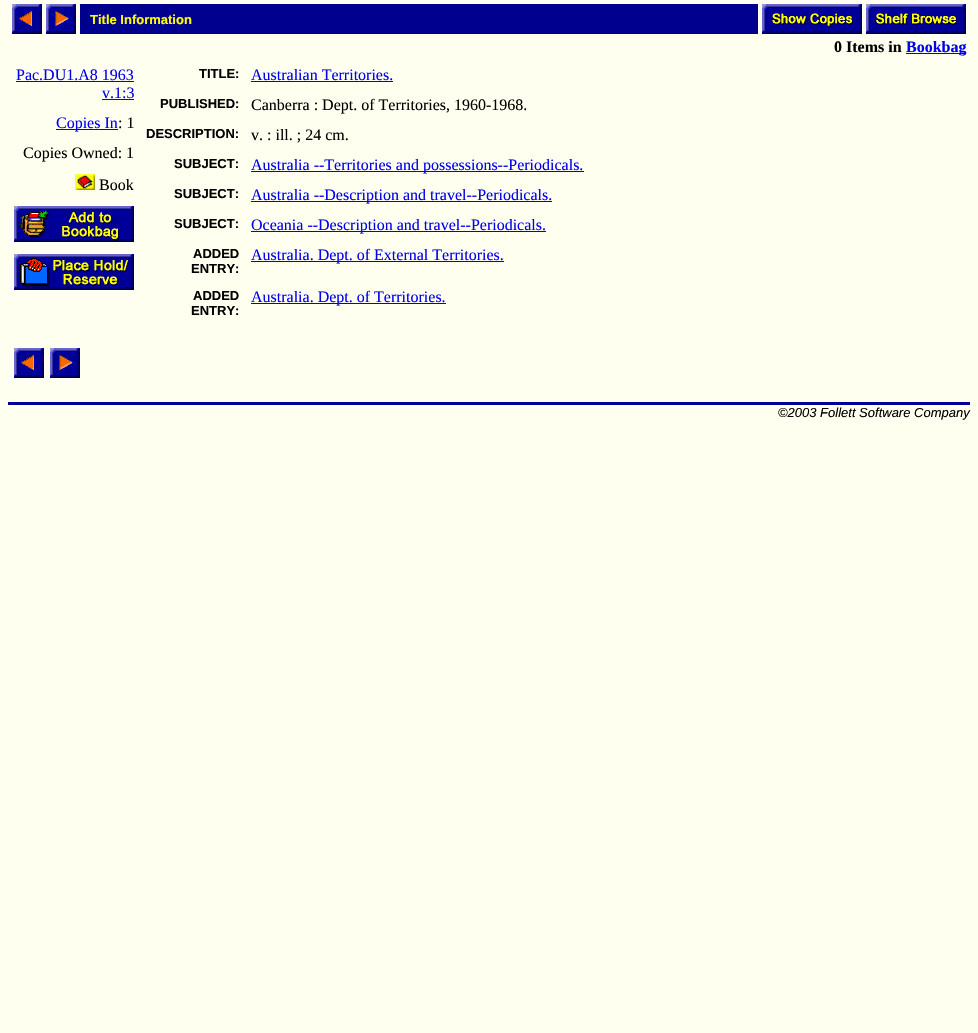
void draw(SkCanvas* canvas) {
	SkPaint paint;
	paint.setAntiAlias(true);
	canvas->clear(0xffffffef);
	canvas->drawImageRect(SkImages::DeferredFromEncodedData(SkData::MakeFromFileName("img1.png")), SkRect::MakeXYWH(12, 4, 30, 30), SkSamplingOptions());
	canvas->drawImageRect(SkImages::DeferredFromEncodedData(SkData::MakeFromFileName("img2.png")), SkRect::MakeXYWH(46, 4, 30, 30), SkSamplingOptions());
	paint.setColor(0xff00008e);
	canvas->drawRect(SkRect::MakeXYWH(80, 4, 678, 30), paint);
	SkFont f1(fontMgr->matchFamilyStyle("Liberation Sans", SkFontStyle::Bold()), 13);
	f1.setSubpixel(true);
	paint.setColor(0xffffff00);
	canvas->drawString("Title Information", 90, 24, f1, paint);
	canvas->drawImageRect(SkImages::DeferredFromEncodedData(SkData::MakeFromFileName("img3.png")), SkRect::MakeXYWH(762, 4, 100, 30), SkSamplingOptions());
	canvas->drawImageRect(SkImages::DeferredFromEncodedData(SkData::MakeFromFileName("img4.png")), SkRect::MakeXYWH(866, 4, 100, 30), SkSamplingOptions());
	SkFont f2(fontMgr->matchFamilyStyle("Liberation Serif", SkFontStyle::Bold()), 16);
	f2.setSubpixel(true);
	paint.setColor(0xff000000);
	canvas->drawString("0 Items in", 834, 52, f2, paint);
	paint.setColor(0xff0000ee);
	canvas->drawRect(SkRect::MakeXYWH(906, 53, 60, 1), paint);
	canvas->drawString("Bookbag", 906, 52, f2, paint);
	SkFont f3(fontMgr->matchFamilyStyle("Liberation Serif", SkFontStyle::Normal()), 16);
	f3.setSubpixel(true);
	canvas->drawString("Pac.DU1.A8 1963", 16, 80, f3, paint);
	canvas->drawRect(SkRect::MakeXYWH(16, 81, 118, 1), paint);
	canvas->drawString("v.1:3", 102, 98, f3, paint);
	canvas->drawRect(SkRect::MakeXYWH(102, 99, 32, 1), paint);
	canvas->drawRect(SkRect::MakeXYWH(56, 129, 62, 1), paint);
	canvas->drawString("Copies In", 56, 128, f3, paint);
	paint.setColor(0xff000000);
	canvas->drawString(": 1", 118, 128, f3, paint);
	canvas->drawString("Copies Owned: 1", 23, 158, f3, paint);
	canvas->drawImageRect(SkImages::DeferredFromEncodedData(SkData::MakeFromFileName("img5.png")), SkRect::MakeXYWH(75, 174, 20, 16), SkSamplingOptions());
	canvas->drawString("Book", 99, 190, f3, paint);
	canvas->drawImageRect(SkImages::DeferredFromEncodedData(SkData::MakeFromFileName("img6.png")), SkRect::MakeXYWH(14, 206, 120, 36), SkSamplingOptions());
	canvas->drawImageRect(SkImages::DeferredFromEncodedData(SkData::MakeFromFileName("img7.png")), SkRect::MakeXYWH(14, 254, 120, 36), SkSamplingOptions());
	canvas->drawString("TITLE:", 199, 78, f1, paint);
	paint.setColor(0xff0000ee);
	canvas->drawString("Australian Territories.", 251, 80, f3, paint);
	canvas->drawRect(SkRect::MakeXYWH(251, 81, 142, 1), paint);
	paint.setColor(0xff000000);
	canvas->drawString("PUBLISHED:", 160, 108, f1, paint);
	canvas->drawString("Canberra : Dept. of Territories, 1960-1968.", 251, 110, f3, paint);
	canvas->drawString("DESCRIPTION:", 146, 138, f1, paint);
	canvas->drawString("v. : ill. ; 24 cm.", 251, 140, f3, paint);
	canvas->drawString("SUBJECT:", 174, 168, f1, paint);
	paint.setColor(0xff0000ee);
	canvas->drawRect(SkRect::MakeXYWH(251, 171, 333, 1), paint);
	canvas->drawString("Australia --Territories and possessions--Periodicals.", 251, 170, f3, paint);
	paint.setColor(0xff000000);
	canvas->drawString("SUBJECT:", 174, 198, f1, paint);
	paint.setColor(0xff0000ee);
	canvas->drawRect(SkRect::MakeXYWH(251, 201, 301, 1), paint);
	canvas->drawString("Australia --Description and travel--Periodicals.", 251, 200, f3, paint);
	paint.setColor(0xff000000);
	canvas->drawString("SUBJECT:", 174, 228, f1, paint);
	paint.setColor(0xff0000ee);
	canvas->drawRect(SkRect::MakeXYWH(251, 231, 295, 1), paint);
	canvas->drawString("Oceania --Description and travel--Periodicals.", 251, 230, f3, paint);
	paint.setColor(0xff000000);
	canvas->drawString("ADDED", 193, 258, f1, paint);
	canvas->drawString("ENTRY:", 191, 273, f1, paint);
	paint.setColor(0xff0000ee);
	canvas->drawRect(SkRect::MakeXYWH(251, 261, 253, 1), paint);
	canvas->drawString("Australia. Dept. of External Territories.", 251, 260, f3, paint);
	paint.setColor(0xff000000);
	canvas->drawString("ADDED", 193, 300, f1, paint);
	canvas->drawString("ENTRY:", 191, 315, f1, paint);
	paint.setColor(0xff0000ee);
	canvas->drawRect(SkRect::MakeXYWH(251, 303, 195, 1), paint);
	canvas->drawString("Australia. Dept. of Territories.", 251, 302, f3, paint);
	canvas->drawImageRect(SkImages::DeferredFromEncodedData(SkData::MakeFromFileName("img1.png")), SkRect::MakeXYWH(14, 348, 30, 30), SkSamplingOptions());
	canvas->drawImageRect(SkImages::DeferredFromEncodedData(SkData::MakeFromFileName("img2.png")), SkRect::MakeXYWH(50, 348, 30, 30), SkSamplingOptions());
	paint.setColor(0xff000099);
	canvas->drawRect(SkRect::MakeXYWH(8, 402, 962, 3), paint);
	SkFont f4(fontMgr->matchFamilyStyle("Liberation Sans", SkFontStyle::Italic()), 13);
	f4.setSubpixel(true);
	paint.setColor(0xff000000);
	canvas->drawString("©2003 Follett Software Company", 778, 417, f4, paint);
}
